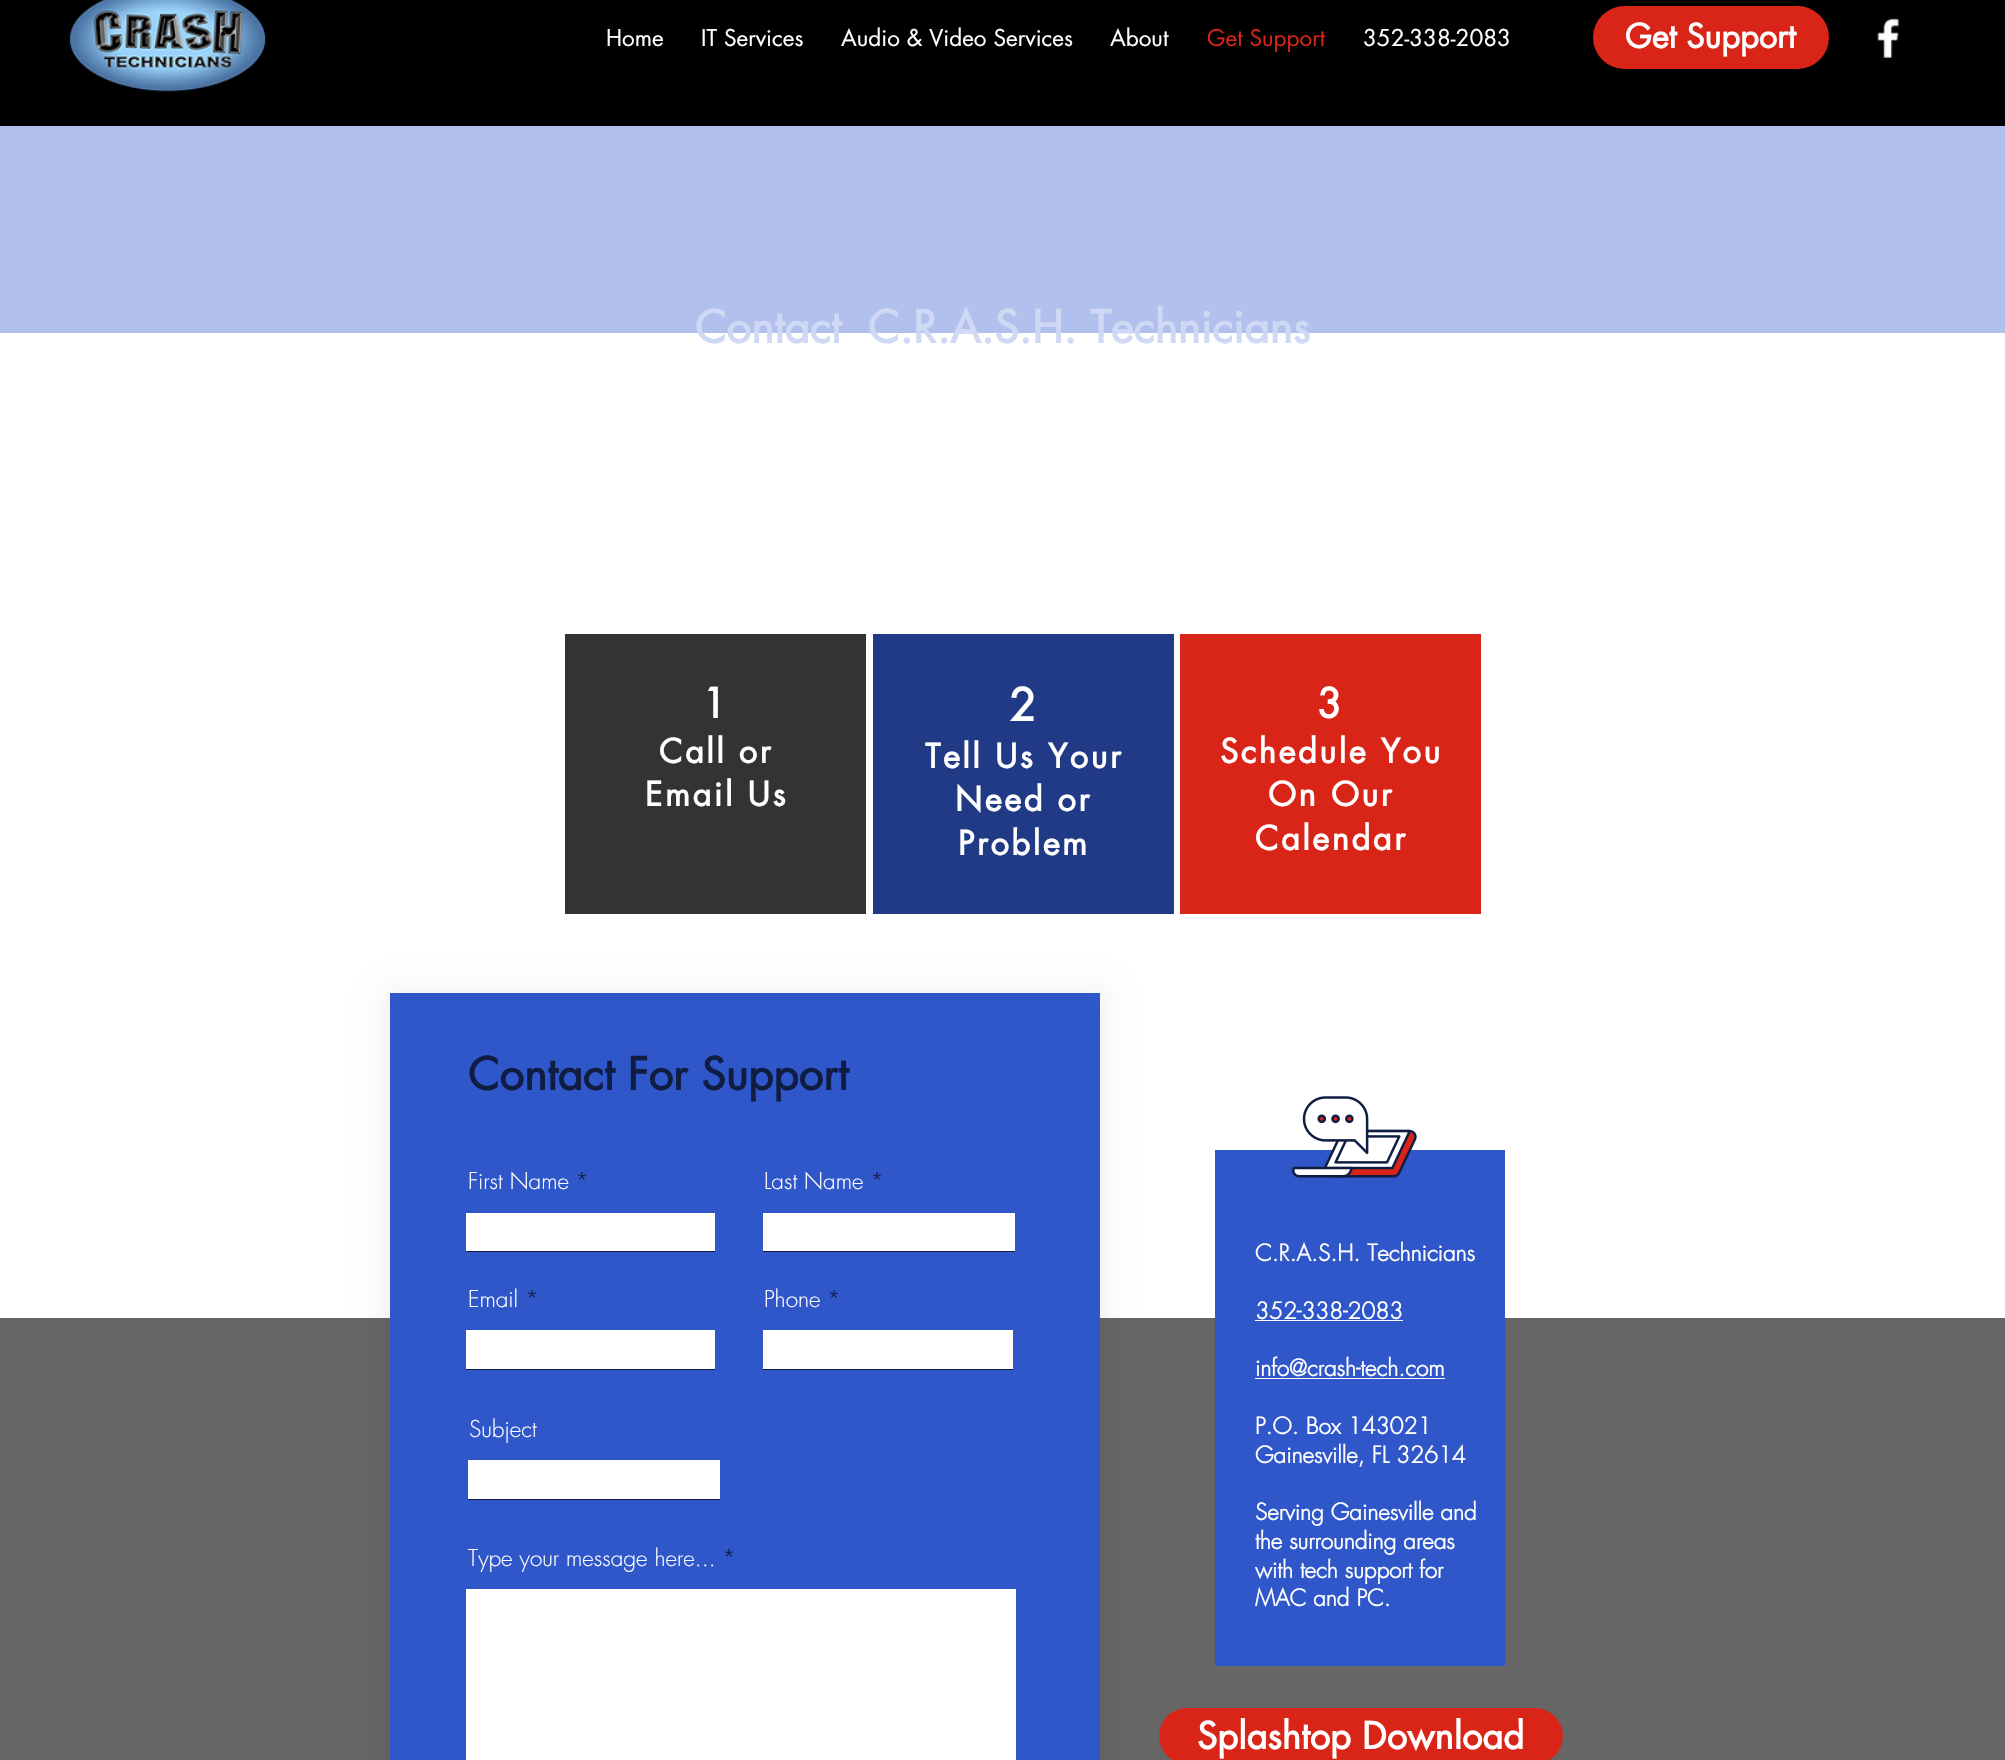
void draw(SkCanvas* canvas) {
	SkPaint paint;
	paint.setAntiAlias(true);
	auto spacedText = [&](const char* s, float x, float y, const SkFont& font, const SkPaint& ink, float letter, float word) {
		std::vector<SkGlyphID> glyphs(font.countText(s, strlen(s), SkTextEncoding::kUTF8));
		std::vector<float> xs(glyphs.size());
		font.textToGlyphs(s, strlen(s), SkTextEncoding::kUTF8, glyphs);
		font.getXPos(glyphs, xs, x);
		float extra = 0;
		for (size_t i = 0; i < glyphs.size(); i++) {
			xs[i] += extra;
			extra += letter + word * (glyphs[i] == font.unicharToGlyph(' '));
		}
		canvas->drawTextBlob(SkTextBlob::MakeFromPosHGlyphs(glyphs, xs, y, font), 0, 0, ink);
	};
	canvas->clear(0xffffffff);
	paint.setColor(0xff000000);
	canvas->drawRect(SkRect::MakeXYWH(0, 0, 2005, 126), paint);
	canvas->drawImageRect(SkImages::DeferredFromEncodedData(SkData::MakeFromFileName("img1.png")), SkRect::MakeXYWH(69, 0, 197, 92), SkSamplingOptions());
	SkFont f1(fontMgr->matchFamilyStyle("futura", SkFontStyle::Normal()), 22.5);
	f1.setSubpixel(true);
	paint.setColor(0xffffffff);
	canvas->drawString("Home", 606, 46, f1, paint);
	canvas->drawString("IT Services", 701, 46, f1, paint);
	canvas->drawString("Audio & Video Services", 841, 46, f1, paint);
	canvas->drawString("About", 1110, 46, f1, paint);
	paint.setColor(0xffd92518);
	canvas->drawString("Get Support", 1207, 46, f1, paint);
	paint.setColor(0xffffffff);
	canvas->drawString("352-338-2083", 1363, 46, f1, paint);
	paint.setColor(0xffd92518);
	canvas->drawRoundRect(SkRect::MakeXYWH(1593, 6, 236, 63), 31.5, 31.5, paint);
	SkFont f2(fontMgr->matchFamilyStyle("futura", SkFontStyle::Bold()), 32.5);
	f2.setSubpixel(true);
	paint.setColor(0xffffffff);
	canvas->drawString("Get Support", 1625, 48, f2, paint);
	canvas->drawImageRect(SkImages::DeferredFromEncodedData(SkData::MakeFromFileName("img2.png")), SkRect::MakeXYWH(1877, 18, 22, 40), SkSamplingOptions());
	paint.setColor(0xffb1c0ed);
	canvas->drawRect(SkRect::MakeXYWH(0, 126, 2005, 207), paint);
	SkFont f3(fontMgr->matchFamilyStyle("futura", SkFontStyle::Bold()), 43.75);
	f3.setSubpixel(true);
	paint.setColor(0xffd0d9f4);
	canvas->drawString("Contact  C.R.A.S.H. Technicians", 695, 343, f3, paint);
	paint.setColor(0xff333333);
	canvas->drawRect(SkRect::MakeXYWH(565, 634, 301, 280), paint);
	SkFont f4(fontMgr->matchFamilyStyle("futura", SkFontStyle::Bold()), 40);
	f4.setSubpixel(true);
	paint.setColor(0xffffffff);
	spacedText("1", 702, 718, f4, paint, 3, 0);
	spacedText("Call or", 659, 763, f2, paint, 2.6, 0);
	spacedText("Email Us", 645, 806, f2, paint, 2.6, 0);
	paint.setColor(0xff203a86);
	canvas->drawRect(SkRect::MakeXYWH(873, 634, 301, 280), paint);
	paint.setColor(0xffffffff);
	spacedText("2", 1009, 721, f3, paint, 4, 0);
	spacedText("Tell Us Your", 925, 768, f2, paint, 2.6, 0);
	spacedText("Need or", 955, 811, f2, paint, 2.6, 0);
	spacedText("Problem", 958, 855, f2, paint, 2.6, 0);
	paint.setColor(0xffd92518);
	canvas->drawRect(SkRect::MakeXYWH(1180, 634, 301, 280), paint);
	paint.setColor(0xffffffff);
	spacedText("3", 1317, 718, f4, paint, 3, 0);
	spacedText("Schedule You", 1220, 763, f2, paint, 2.6, 0);
	spacedText("On Our", 1268, 806, f2, paint, 2.6, 0);
	spacedText("Calendar", 1255, 850, f2, paint, 2.6, 0);
	paint.setColor(0xff666666);
	canvas->drawRect(SkRect::MakeXYWH(0, 1318, 2005, 442), paint);
	paint.setColor(0x0f000000);
	paint.setMaskFilter(SkMaskFilter::MakeBlur(kNormal_SkBlurStyle, 12.5));
	canvas->drawRect(SkRect::MakeXYWH(384, 990, 722, 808), paint);
	paint.setMaskFilter(nullptr);
	paint.setColor(0xff3057c9);
	canvas->drawRect(SkRect::MakeXYWH(390, 993, 710, 767), paint);
	paint.setColor(0xff101d43);
	canvas->drawString("Contact For Support", 468, 1090, f3, paint);
	SkFont f5(fontMgr->matchFamilyStyle("futura", SkFontStyle(300, SkFontStyle::kNormal_Width, SkFontStyle::kUpright_Slant)), 22.5);
	f5.setSubpixel(true);
	paint.setColor(0xffffffff);
	canvas->drawString("First Name", 468, 1189, f5, paint);
	paint.setColor(0xff101d43);
	canvas->drawString("*", 575, 1189, f5, paint);
	paint.setColor(0xffffffff);
	canvas->drawRect(SkRect::MakeXYWH(466, 1213, 249, 38), paint);
	paint.setColor(0xff101d43);
	canvas->drawRect(SkRect::MakeXYWH(466, 1251, 249, 1), paint);
	paint.setColor(0xffffffff);
	canvas->drawString("Last Name", 764, 1189, f5, paint);
	paint.setColor(0xff101d43);
	canvas->drawString("*", 870, 1189, f5, paint);
	paint.setColor(0xffffffff);
	canvas->drawRect(SkRect::MakeXYWH(763, 1213, 252, 38), paint);
	paint.setColor(0xff101d43);
	canvas->drawRect(SkRect::MakeXYWH(763, 1251, 252, 1), paint);
	paint.setColor(0xffffffff);
	canvas->drawString("Email", 468, 1307, f5, paint);
	paint.setColor(0xff101d43);
	canvas->drawString("*", 525, 1307, f5, paint);
	paint.setColor(0xffffffff);
	canvas->drawRect(SkRect::MakeXYWH(466, 1330, 249, 39), paint);
	paint.setColor(0xff101d43);
	canvas->drawRect(SkRect::MakeXYWH(466, 1369, 249, 1), paint);
	paint.setColor(0xffffffff);
	canvas->drawString("Phone", 764, 1307, f5, paint);
	paint.setColor(0xff101d43);
	canvas->drawString("*", 827, 1307, f5, paint);
	paint.setColor(0xffffffff);
	canvas->drawRect(SkRect::MakeXYWH(763, 1330, 250, 39), paint);
	paint.setColor(0xff101d43);
	canvas->drawRect(SkRect::MakeXYWH(763, 1369, 250, 1), paint);
	paint.setColor(0xffffffff);
	canvas->drawString("Subject", 469, 1437, f5, paint);
	canvas->drawRect(SkRect::MakeXYWH(468, 1460, 252, 39), paint);
	paint.setColor(0xff101d43);
	canvas->drawRect(SkRect::MakeXYWH(468, 1499, 252, 1), paint);
	paint.setColor(0xffffffff);
	canvas->drawString("Type your message here...", 468, 1566, f5, paint);
	paint.setColor(0xff101d43);
	canvas->drawString("*", 722, 1566, f5, paint);
	paint.setColor(0xffffffff);
	canvas->drawRect(SkRect::MakeXYWH(466, 1589, 550, 171), paint);
	paint.setColor(0xffd92518);
	canvas->drawRoundRect(SkRect::MakeXYWH(1159, 1708, 404, 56), 28, 28, paint);
	SkFont f6(fontMgr->matchFamilyStyle("futura", SkFontStyle::Bold()), 36.25);
	f6.setSubpixel(true);
	paint.setColor(0xffffffff);
	canvas->drawString("Splashtop Download", 1197, 1749, f6, paint);
	paint.setColor(0xff3057c9);
	canvas->drawRect(SkRect::MakeXYWH(1215, 1150, 290, 516), paint);
	canvas->drawImageRect(SkImages::DeferredFromEncodedData(SkData::MakeFromFileName("img3.png")), SkRect::MakeXYWH(1292, 1096, 125, 82), SkSamplingOptions());
	SkFont f7(fontMgr->matchFamilyStyle("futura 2", SkFontStyle::Bold()), 22.5);
	f7.setSubpixel(true);
	paint.setColor(0xffffffff);
	canvas->drawString("C.R.A.S.H. Technicians", 1255, 1261, f7, paint);
	canvas->drawString("352-338-2083", 1255, 1319, f7, paint);
	canvas->drawRect(SkRect::MakeXYWH(1255, 1320, 148, 1), paint);
	canvas->drawString("info@crash-tech.com", 1255, 1376, f7, paint);
	canvas->drawRect(SkRect::MakeXYWH(1255, 1378, 190, 1), paint);
	canvas->drawString("P.O. Box 143021", 1255, 1434, f7, paint);
	canvas->drawString("Gainesville, FL 32614", 1255, 1463, f7, paint);
	canvas->drawString("Serving Gainesville and", 1255, 1520, f7, paint);
	canvas->drawString("the surrounding areas", 1255, 1549, f7, paint);
	canvas->drawString("with tech support for", 1255, 1578, f7, paint);
	canvas->drawString("MAC and PC.", 1255, 1606, f7, paint);
}
